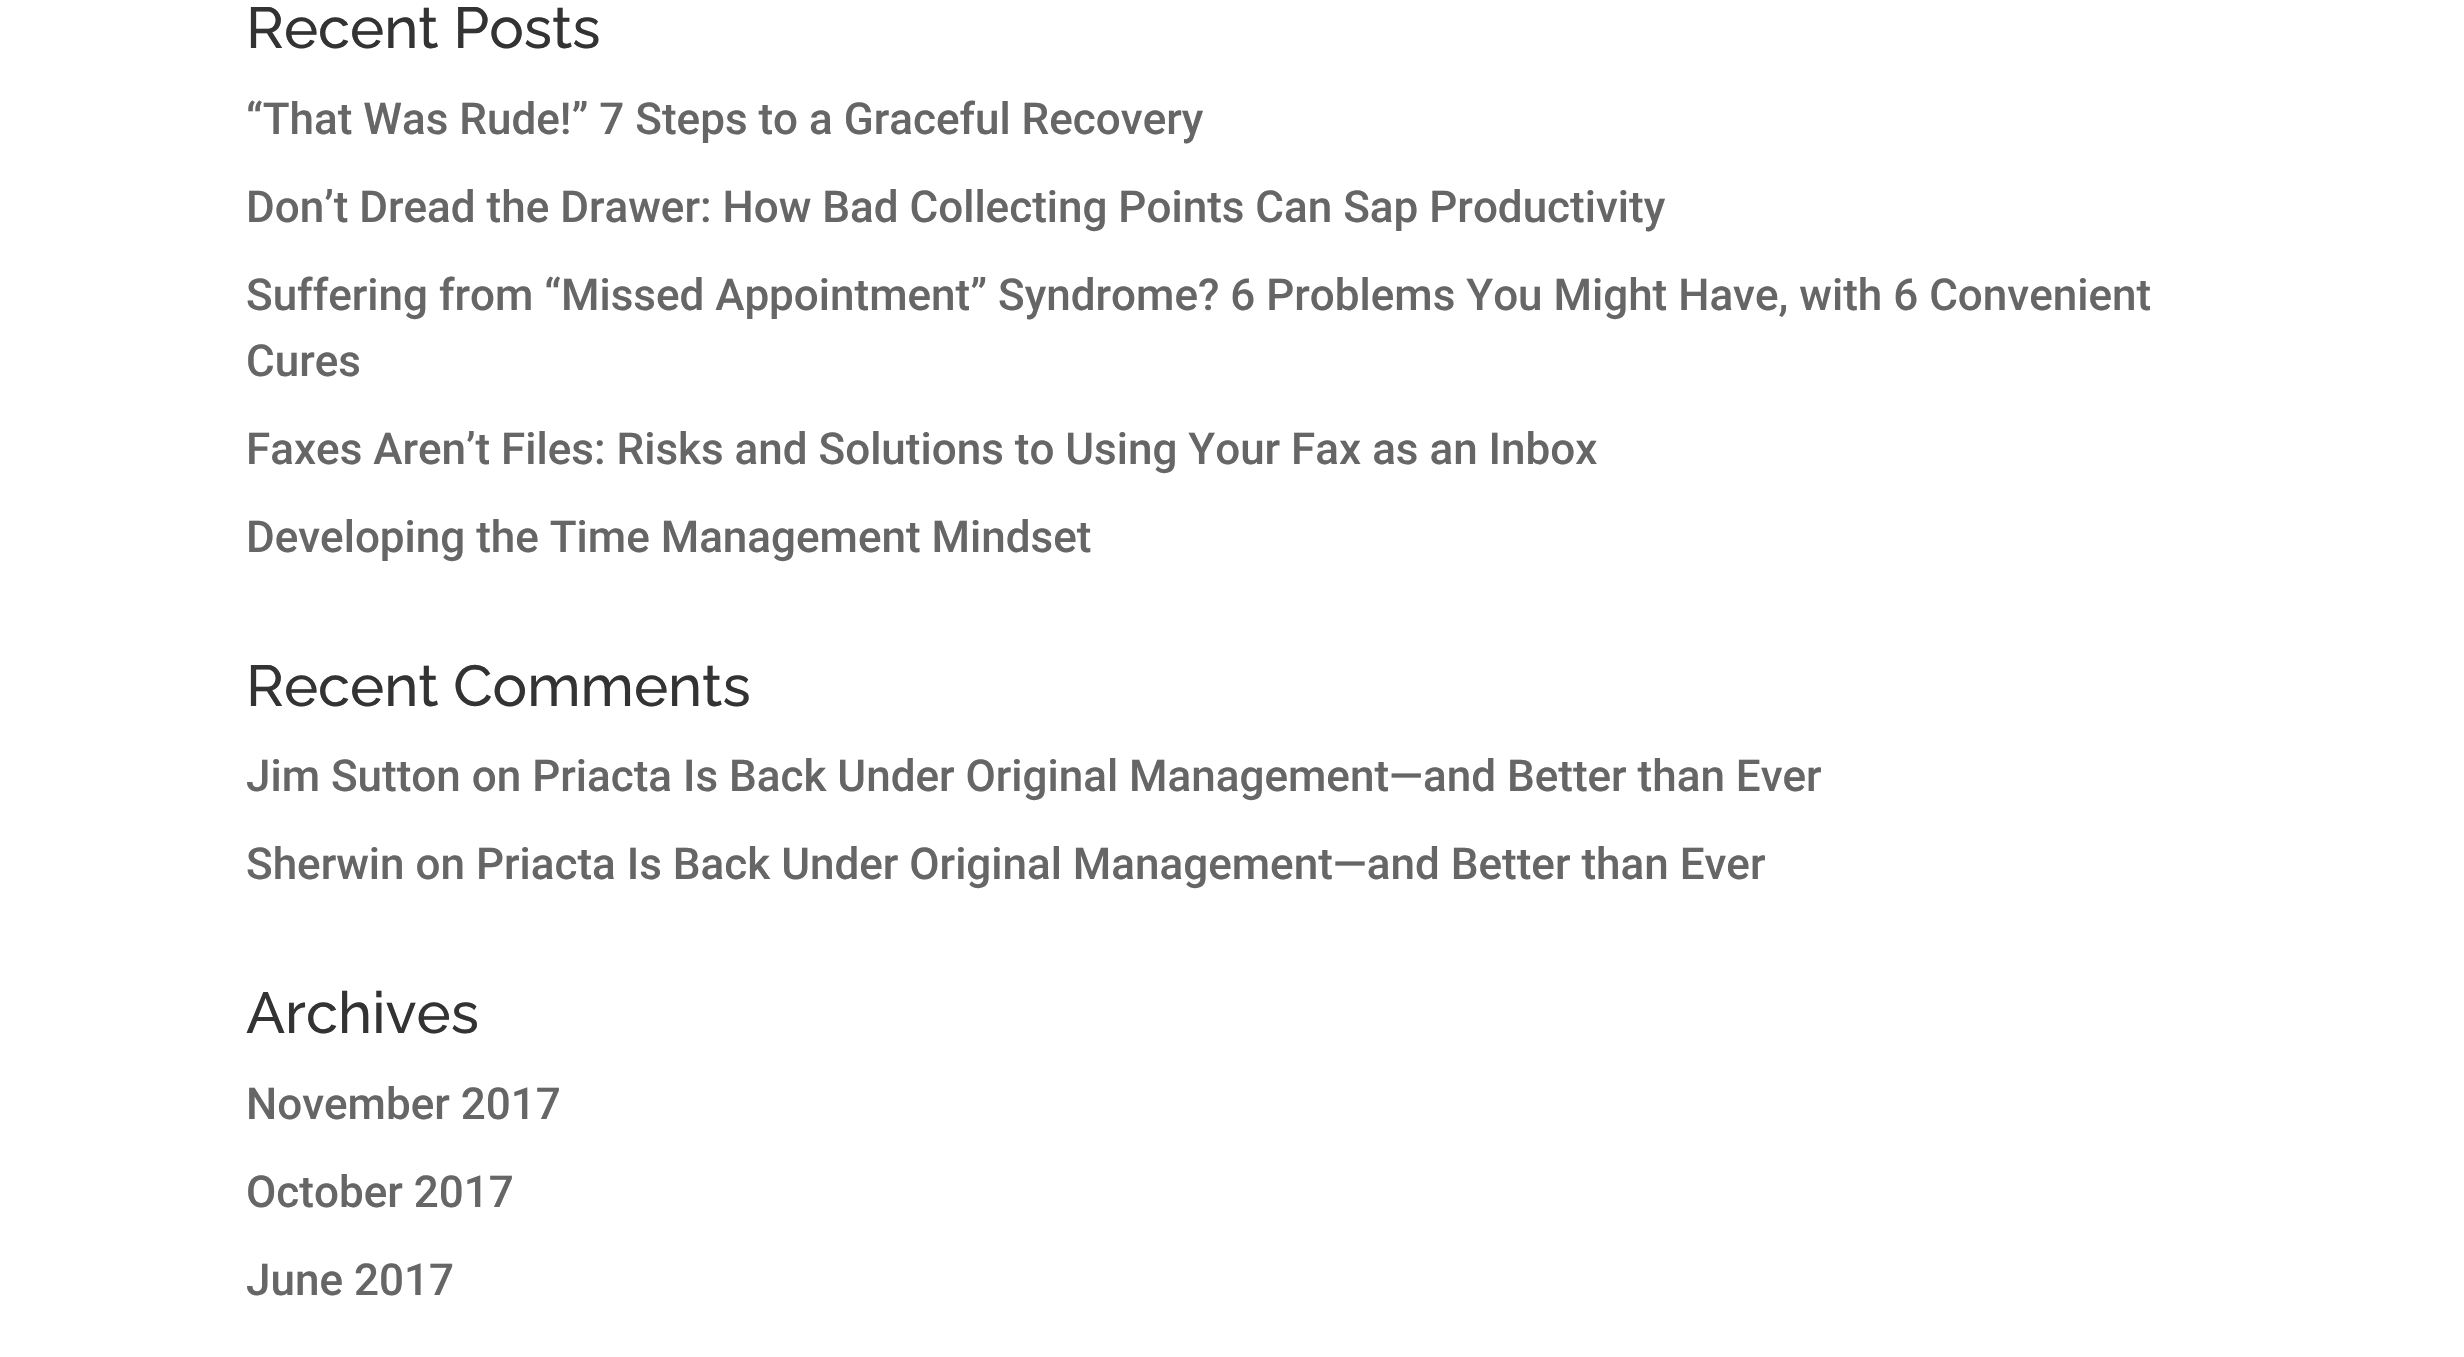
void draw(SkCanvas* canvas) {
	SkPaint paint;
	paint.setAntiAlias(true);
	canvas->clear(0xffffffff);
	SkFont f1(fontMgr->matchFamilyStyle("Raleway", SkFontStyle(500, SkFontStyle::kNormal_Width, SkFontStyle::kUpright_Slant)), 57.75);
	f1.setSubpixel(true);
	paint.setColor(0xff333333);
	canvas->drawString("Recent Posts", 246, 48, f1, paint);
	SkFont f2(fontMgr->matchFamilyStyle("Roboto", SkFontStyle(500, SkFontStyle::kNormal_Width, SkFontStyle::kUpright_Slant)), 44);
	f2.setSubpixel(true);
	paint.setColor(0xff666666);
	canvas->drawString("“That Was Rude!” 7 Steps to a Graceful Recovery", 246, 134, f2, paint);
	canvas->drawString("Don’t Dread the Drawer: How Bad Collecting Points Can Sap Productivity", 246, 222, f2, paint);
	canvas->drawString("Suffering from “Missed Appointment” Syndrome? 6 Problems You Might Have, with 6 Convenient", 246, 310, f2, paint);
	canvas->drawString("Cures", 246, 376, f2, paint);
	canvas->drawString("Faxes Aren’t Files: Risks and Solutions to Using Your Fax as an Inbox", 246, 464, f2, paint);
	canvas->drawString("Developing the Time Management Mindset", 246, 552, f2, paint);
	paint.setColor(0xff333333);
	canvas->drawString("Recent Comments", 246, 706, f1, paint);
	paint.setColor(0xff666666);
	canvas->drawString("Jim Sutton on Priacta Is Back Under Original Management—and Better than Ever", 246, 791, f2, paint);
	canvas->drawString("Sherwin on Priacta Is Back Under Original Management—and Better than Ever", 246, 879, f2, paint);
	paint.setColor(0xff333333);
	canvas->drawString("Archives", 246, 1033, f1, paint);
	paint.setColor(0xff666666);
	canvas->drawString("November 2017", 246, 1119, f2, paint);
	canvas->drawString("October 2017", 246, 1207, f2, paint);
	canvas->drawString("June 2017", 246, 1295, f2, paint);
}
